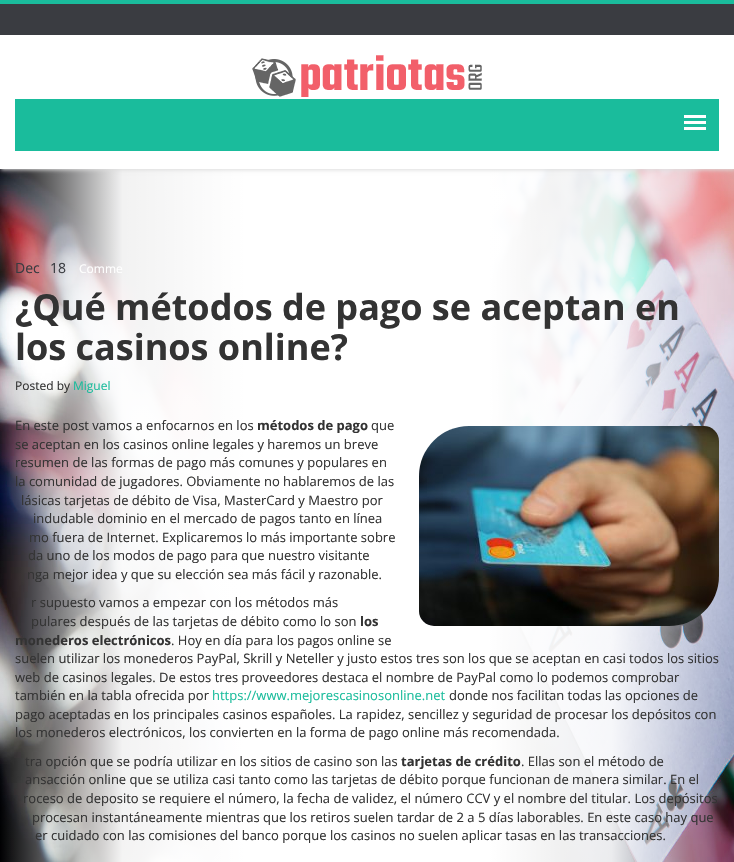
void draw(SkCanvas* canvas) {
	SkPaint paint;
	paint.setAntiAlias(true);
	canvas->clear(0xffffffff);
	canvas->drawImageRect(SkImages::DeferredFromEncodedData(SkData::MakeFromFileName("img1.png")), SkRect::MakeXYWH(0, 169, 734, 693), SkSamplingOptions());
	paint.setColor(0xffdddddd);
	paint.setMaskFilter(SkMaskFilter::MakeBlur(kNormal_SkBlurStyle, 2));
	canvas->drawRect(SkRect::MakeXYWH(1, 1, 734, 169), paint);
	paint.setMaskFilter(nullptr);
	paint.setColor(0xff3a3c41);
	canvas->drawRect(SkRect::MakeXYWH(0, 4, 734, 31), paint);
	paint.setColor(0xff1abc9c);
	canvas->drawRect(SkRect::MakeXYWH(0, 0, 734, 4), paint);
	paint.setColor(0xffffffff);
	canvas->drawRect(SkRect::MakeXYWH(0, 35, 734, 134), paint);
	canvas->drawImageRect(SkImages::DeferredFromEncodedData(SkData::MakeFromFileName("img2.png")), SkRect::MakeXYWH(252, 55, 230, 42), SkSamplingOptions());
	paint.setColor(0xff1abc9c);
	canvas->drawRect(SkRect::MakeXYWH(15, 99, 704, 52), paint);
	paint.setColor(0xffffffff);
	canvas->drawRect(SkRect::MakeXYWH(684, 115, 22, 3), paint);
	canvas->drawRect(SkRect::MakeXYWH(684, 121, 22, 3), paint);
	canvas->drawRect(SkRect::MakeXYWH(684, 127, 22, 3), paint);
	SkFont f1(fontMgr->matchFamilyStyle("Open Sans", SkFontStyle::Normal()), 14);
	f1.setSubpixel(true);
	paint.setColor(0xff3a3c41);
	canvas->drawString("Dec", 15, 273, f1, paint);
	canvas->drawString("18", 50, 273, f1, paint);
	SkFont f2(fontMgr->matchFamilyStyle("Open Sans", SkFontStyle::Normal()), 12);
	f2.setSubpixel(true);
	paint.setColor(0xffffffff);
	canvas->drawString("Comme", 79, 273, f2, paint);
	SkFont f3(fontMgr->matchFamilyStyle("Open Sans", SkFontStyle::Bold()), 36);
	f3.setSubpixel(true);
	paint.setColor(0xff333333);
	canvas->drawString("¿Qué métodos de pago se aceptan en", 15, 320, f3, paint);
	canvas->drawString("los casinos online?", 15, 360, f3, paint);
	canvas->drawString("Posted by", 15, 390, f2, paint);
	paint.setColor(0xff1abc9c);
	canvas->drawString("Miguel", 73, 390, f2, paint);
	SkFont f4(fontMgr->matchFamilyStyle("Open Sans", SkFontStyle::Normal()), 13);
	f4.setSubpixel(true);
	paint.setColor(0xff333333);
	canvas->drawString("En este post vamos a enfocarnos en los", 15, 430, f4, paint);
	SkFont f5(fontMgr->matchFamilyStyle("Open Sans", SkFontStyle::Bold()), 13);
	f5.setSubpixel(true);
	canvas->drawString("métodos de pago", 257, 430, f5, paint);
	canvas->drawString("que", 371, 430, f4, paint);
	canvas->drawImageRect(SkImages::DeferredFromEncodedData(SkData::MakeFromFileName("img3.png")), SkRect::MakeXYWH(419, 426, 300, 200), SkSamplingOptions());
	canvas->drawString("se aceptan en los casinos online legales y haremos un breve", 15, 449, f4, paint);
	canvas->drawString("resumen de las formas de pago más comunes y populares en", 15, 467, f4, paint);
	canvas->drawString("la comunidad de jugadores. Obviamente no hablaremos de las", 15, 486, f4, paint);
	canvas->drawString("lásicas tarjetas de débito de Visa, MasterCard y Maestro por", 21, 505, f4, paint);
	canvas->drawString("indudable dominio en el mercado de pagos tanto en línea", 33, 523, f4, paint);
	canvas->drawString("mo fuera de Internet. Explicaremos lo más importante sobre", 29, 542, f4, paint);
	canvas->drawString("da uno de los modos de pago para que nuestro visitante", 28, 560, f4, paint);
	canvas->drawString("nga mejor idea y que su elección sea más fácil y razonable.", 27, 579, f4, paint);
	canvas->drawString("r supuesto vamos a empezar con los métodos más", 31, 607, f4, paint);
	canvas->drawString("pulares después de las tarjetas de débito como lo son", 31, 626, f4, paint);
	canvas->drawString("los", 360, 626, f5, paint);
	canvas->drawString("monederos electrónicos", 15, 645, f5, paint);
	canvas->drawString(". Hoy en día para los pagos online se", 171, 645, f4, paint);
	canvas->drawString("suelen utilizar los monederos PayPal, Skrill y Neteller y justo estos tres son los que se aceptan en casi todos los sitios", 15, 663, f4, paint);
	canvas->drawString("web de casinos legales. De estos tres proveedores destaca el nombre de PayPal como lo podemos comprobar", 15, 682, f4, paint);
	canvas->drawString("también en la tabla ofrecida por", 15, 700, f4, paint);
	paint.setColor(0xff1abc9c);
	canvas->drawString("https://www.mejorescasinosonline.net", 212, 700, f4, paint);
	paint.setColor(0xff333333);
	canvas->drawString("donde nos facilitan todas las opciones de", 449, 700, f4, paint);
	canvas->drawString("pago aceptadas en los principales casinos españoles. La rapidez, sencillez y seguridad de procesar los depósitos con", 15, 719, f4, paint);
	canvas->drawString("los monederos electrónicos, los convierten en la forma de pago online más recomendada.", 15, 737, f4, paint);
	canvas->drawString("tra opción que se podría utilizar en los sitios de casino son las", 25, 766, f4, paint);
	canvas->drawString("tarjetas de crédito", 401, 766, f5, paint);
	canvas->drawString(". Ellas son el método de", 521, 766, f4, paint);
	canvas->drawString("ansacción online que se utiliza casi tanto como las tarjetas de débito porque funcionan de manera similar. En el", 25, 784, f4, paint);
	canvas->drawString("roceso de deposito se requiere el número, la fecha de validez, el número CCV y el nombre del titular. Los depósitos", 23, 803, f4, paint);
	canvas->drawString("procesan instantáneamente mientras que los retiros suelen tardar de 2 a 5 días laborables. En este caso hay que", 32, 822, f4, paint);
	canvas->drawString("er cuidado con las comisiones del banco porque los casinos no suelen aplicar tasas en las transacciones.", 35, 840, f4, paint);
}
